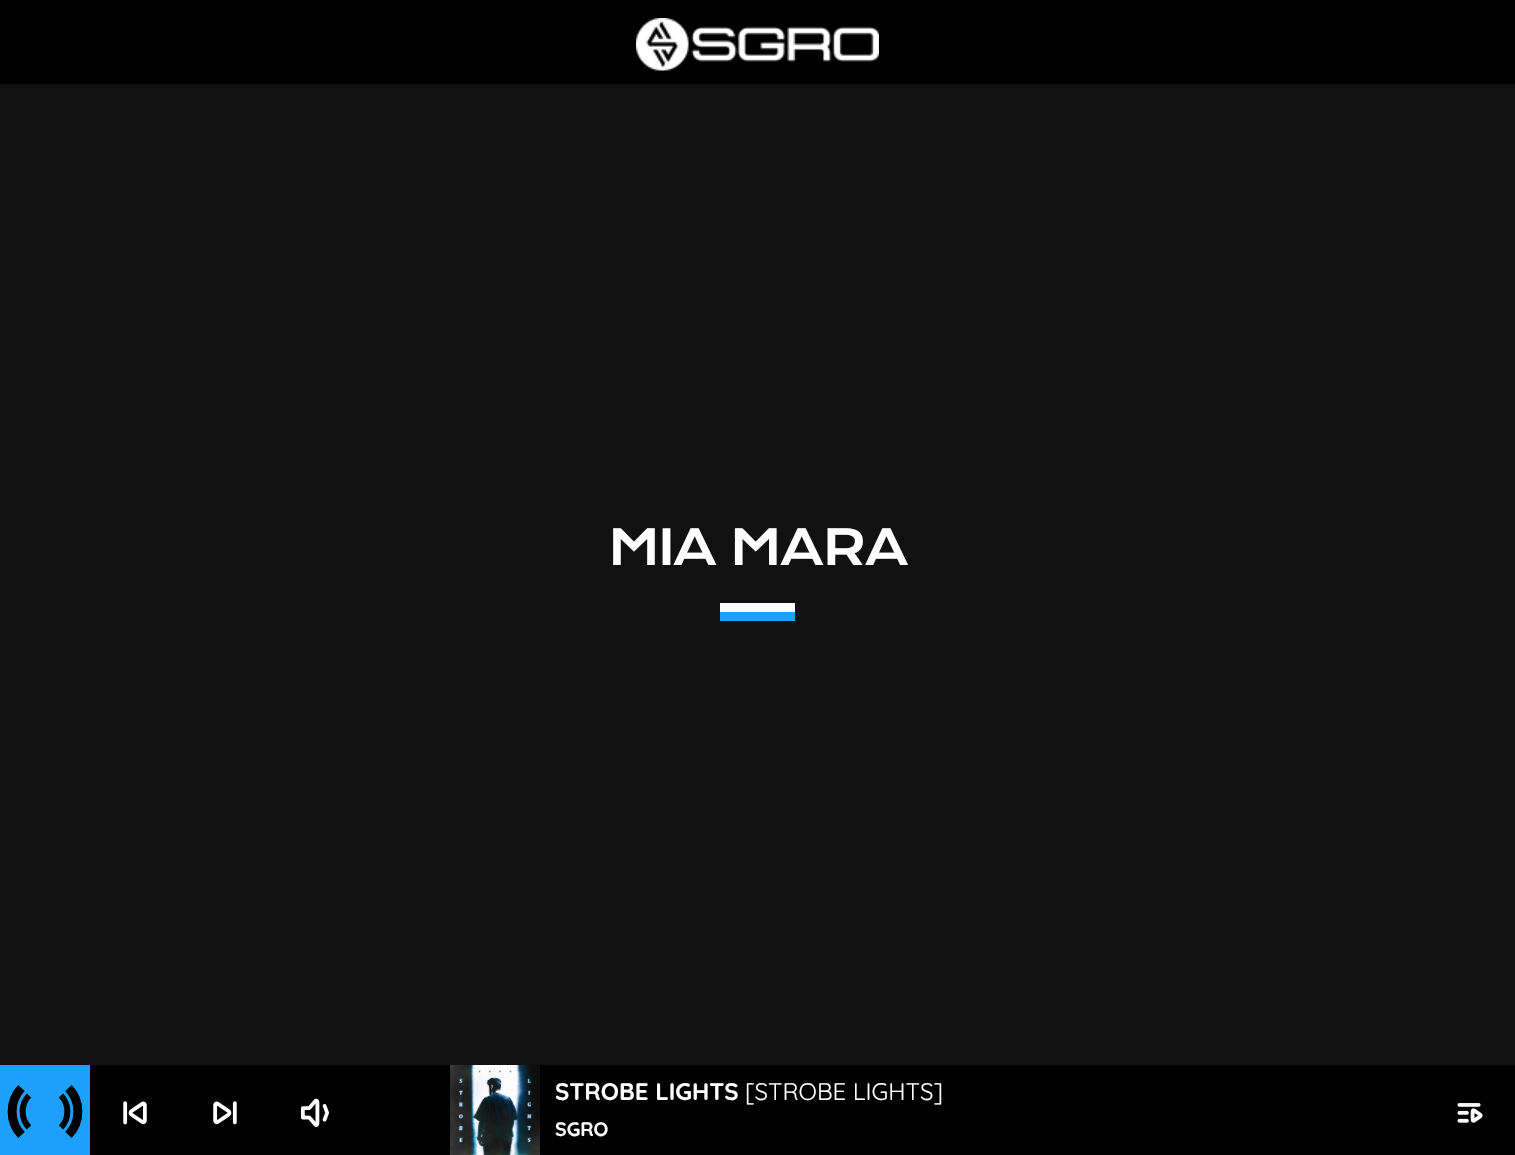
void draw(SkCanvas* canvas) {
	SkPaint paint;
	paint.setAntiAlias(true);
	auto spacedText = [&](const char* s, float x, float y, const SkFont& font, const SkPaint& ink, float letter, float word) {
		std::vector<SkGlyphID> glyphs(font.countText(s, strlen(s), SkTextEncoding::kUTF8));
		std::vector<float> xs(glyphs.size());
		font.textToGlyphs(s, strlen(s), SkTextEncoding::kUTF8, glyphs);
		font.getXPos(glyphs, xs, x);
		float extra = 0;
		for (size_t i = 0; i < glyphs.size(); i++) {
			xs[i] += extra;
			extra += letter + word * (glyphs[i] == font.unicharToGlyph(' '));
		}
		canvas->drawTextBlob(SkTextBlob::MakeFromPosHGlyphs(glyphs, xs, y, font), 0, 0, ink);
	};
	auto svgPath = [&](const char* data, bool evenOdd = false) {
		SkPath result = *SkParsePath::FromSVGString(data);
		if (evenOdd) result.setFillType(SkPathFillType::kEvenOdd);
		return result;
	};
	canvas->clear(0xff111111);
	paint.setColor(0xff000000);
	canvas->drawRect(SkRect::MakeXYWH(0, 0, 1515, 84), paint);
	canvas->drawImageRect(SkImages::DeferredFromEncodedData(SkData::MakeFromFileName("img1.png")), SkRect::MakeXYWH(636, 18, 243, 53), SkSamplingOptions());
	SkFont f1(fontMgr->matchFamilyStyle("Krona One", SkFontStyle::Normal()), 48);
	f1.setSubpixel(true);
	paint.setColor(0xffffffff);
	spacedText("MIA MARA", 608, 565, f1, paint, -1.5, 0);
	paint.setColor(0xff1ca0fc);
	canvas->drawRect(SkRect::MakeXYWH(720, 612, 75, 9), paint);
	paint.setColor(0xffffffff);
	canvas->drawRect(SkRect::MakeXYWH(720, 603, 75, 9), paint);
	paint.setColor(0xff000000);
	canvas->drawRect(SkRect::MakeXYWH(90, 1065, 1425, 90), paint);
	paint.setColor(0xff1ca0fc);
	canvas->drawRect(SkRect::MakeXYWH(0, 1065, 90, 90), paint);
	paint.setStroke(true);
	paint.setStrokeWidth(6);
	paint.setColor(0xff000000);
	canvas->drawPath(svgPath("M61 1095.5C69.5 1104.5 69.5 1118.5 61 1127.5M29 1127.5C20.5 1118.5 20.5 1104.5 29 1095.5"), paint);
	paint.setStrokeWidth(9);
	canvas->drawPath(svgPath("M68.5 1088C81 1101 81 1122 68.5 1135"), paint);
	canvas->drawPath(svgPath("M21.5 1135C9 1122 9 1101 21.5 1088"), paint);
	canvas->drawImageRect(SkImages::DeferredFromEncodedData(SkData::MakeFromFileName("img2.png")), SkRect::MakeXYWH(123, 1101, 24, 24), SkSamplingOptions());
	canvas->drawImageRect(SkImages::DeferredFromEncodedData(SkData::MakeFromFileName("img3.png")), SkRect::MakeXYWH(213, 1101, 24, 24), SkSamplingOptions());
	canvas->drawImageRect(SkImages::DeferredFromEncodedData(SkData::MakeFromFileName("img4.png")), SkRect::MakeXYWH(300, 1098, 29, 29), SkSamplingOptions());
	canvas->drawImageRect(SkImages::DeferredFromEncodedData(SkData::MakeFromFileName("img5.png")), SkRect::MakeXYWH(450, 1065, 90, 90), SkSamplingOptions());
	SkFont f2(fontMgr->matchFamilyStyle("Quicksand", SkFontStyle::Bold()), 24);
	f2.setSubpixel(true);
	paint.setStroke(false);
	paint.setColor(0xffffffff);
	canvas->drawString("STROBE LIGHTS", 555, 1100, f2, paint);
	SkFont f3(fontMgr->matchFamilyStyle("Quicksand", SkFontStyle::Normal()), 24);
	f3.setSubpixel(true);
	canvas->drawString("[STROBE LIGHTS]", 745, 1100, f3, paint);
	SkFont f4(fontMgr->matchFamilyStyle("Quicksand", SkFontStyle::Bold()), 19.5);
	f4.setSubpixel(true);
	canvas->drawString("SGRO", 555, 1136, f4, paint);
	canvas->drawImageRect(SkImages::DeferredFromEncodedData(SkData::MakeFromFileName("img6.png")), SkRect::MakeXYWH(1457, 1103, 26, 20), SkSamplingOptions());
}
